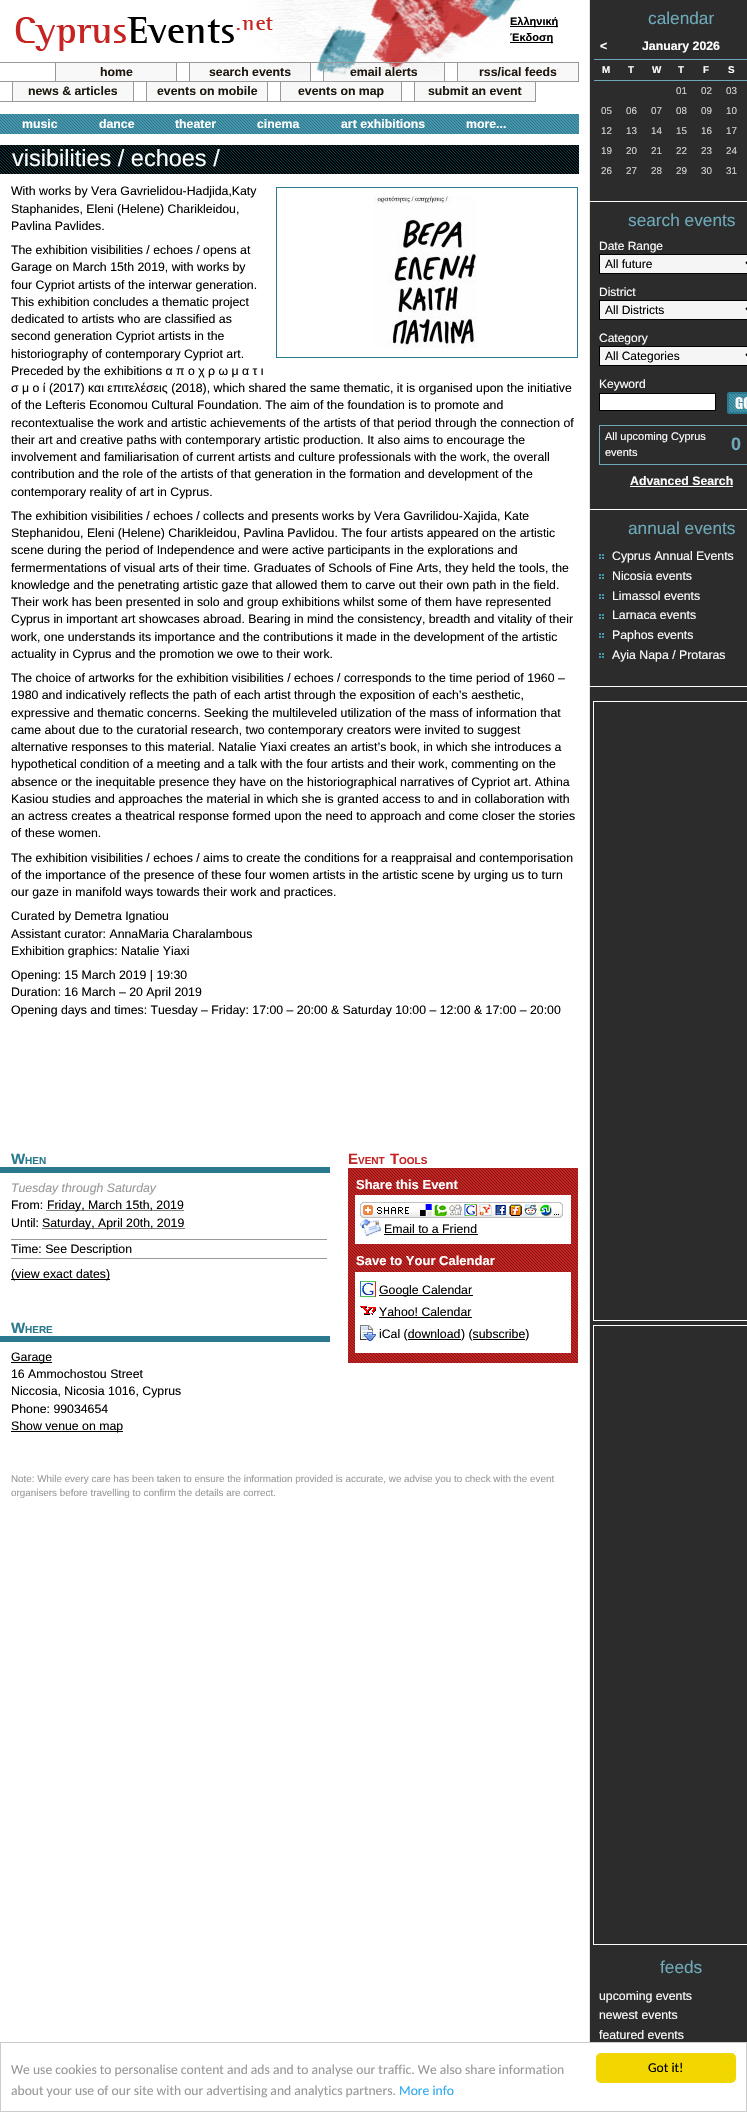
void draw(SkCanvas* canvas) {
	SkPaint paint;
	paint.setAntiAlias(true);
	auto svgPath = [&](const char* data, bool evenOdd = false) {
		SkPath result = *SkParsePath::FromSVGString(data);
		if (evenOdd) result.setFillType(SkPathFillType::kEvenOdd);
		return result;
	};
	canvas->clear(0xffffffff);
	canvas->drawImageRect(SkImages::DeferredFromEncodedData(SkData::MakeFromFileName("img1.png")), SkRect::MakeXYWH(0, 0, 747, 2042), SkSamplingOptions());
	canvas->drawImageRect(SkImages::DeferredFromEncodedData(SkData::MakeFromFileName("img2.png")), SkRect::MakeXYWH(15, 0, 506, 75), SkSamplingOptions());
	paint.setColor(0xff000000);
	canvas->drawRect(SkRect::MakeXYWH(510, 26, 48, 1), paint);
	SkFont f1(fontMgr->matchFamilyStyle("Liberation Sans", SkFontStyle::Bold()), 11);
	f1.setSubpixel(true);
	canvas->drawString("Ελληνική", 510, 25, f1, paint);
	canvas->drawRect(SkRect::MakeXYWH(510, 42, 43, 1), paint);
	canvas->drawString("Έκδοση", 510, 41, f1, paint);
	paint.setColor(0xff999999);
	canvas->drawRect(SkRect::MakeXYWH(0, 62, 579, 1), paint);
	canvas->drawRect(SkRect::MakeXYWH(0, 81, 579, 1), paint);
	paint.setColor(0xfff8f8f8);
	canvas->drawRect(SkRect::MakeXYWH(56, 63, 120, 18), paint);
	paint.setColor(0xff999999);
	canvas->drawRect(SkRect::MakeXYWH(176, 63, 1, 18), paint);
	canvas->drawRect(SkRect::MakeXYWH(55, 63, 1, 18), paint);
	SkFont f2(fontMgr->matchFamilyStyle("Liberation Sans", SkFontStyle::Bold()), 12.3);
	f2.setSubpixel(true);
	paint.setColor(0xff1e190f);
	canvas->drawString("home", 100, 76, f2, paint);
	paint.setColor(0x129c9c9c);
	canvas->drawRect(SkRect::MakeXYWH(190, 63, 120, 18), paint);
	paint.setColor(0xff999999);
	canvas->drawRect(SkRect::MakeXYWH(310, 63, 1, 18), paint);
	canvas->drawRect(SkRect::MakeXYWH(189, 63, 1, 18), paint);
	paint.setColor(0xff1e190f);
	canvas->drawString("search events", 209, 76, f2, paint);
	paint.setColor(0x129c9c9c);
	canvas->drawRect(SkRect::MakeXYWH(324, 63, 120, 18), paint);
	paint.setColor(0xff999999);
	canvas->drawRect(SkRect::MakeXYWH(444, 63, 1, 18), paint);
	canvas->drawRect(SkRect::MakeXYWH(323, 63, 1, 18), paint);
	paint.setColor(0xff1e190f);
	canvas->drawString("email alerts", 350, 76, f2, paint);
	paint.setColor(0x129c9c9c);
	canvas->drawRect(SkRect::MakeXYWH(458, 63, 120, 18), paint);
	paint.setColor(0xff999999);
	canvas->drawRect(SkRect::MakeXYWH(578, 63, 1, 18), paint);
	canvas->drawRect(SkRect::MakeXYWH(457, 63, 1, 18), paint);
	paint.setColor(0xff1e190f);
	canvas->drawString("rss/ical feeds", 479, 76, f2, paint);
	paint.setColor(0xff999999);
	canvas->drawRect(SkRect::MakeXYWH(0, 101, 536, 1), paint);
	paint.setColor(0xfff8f8f8);
	canvas->drawRect(SkRect::MakeXYWH(13, 82, 120, 19), paint);
	paint.setColor(0xff999999);
	canvas->drawRect(SkRect::MakeXYWH(133, 82, 1, 19), paint);
	canvas->drawRect(SkRect::MakeXYWH(12, 82, 1, 19), paint);
	paint.setColor(0xff1e190f);
	canvas->drawString("news & articles", 28, 95, f2, paint);
	paint.setColor(0xfff8f8f8);
	canvas->drawRect(SkRect::MakeXYWH(147, 82, 120, 19), paint);
	paint.setColor(0xff999999);
	canvas->drawRect(SkRect::MakeXYWH(267, 82, 1, 19), paint);
	canvas->drawRect(SkRect::MakeXYWH(146, 82, 1, 19), paint);
	paint.setColor(0xff1e190f);
	canvas->drawString("events on mobile", 157, 95, f2, paint);
	paint.setColor(0xfff8f8f8);
	canvas->drawRect(SkRect::MakeXYWH(281, 82, 120, 19), paint);
	paint.setColor(0xff999999);
	canvas->drawRect(SkRect::MakeXYWH(401, 82, 1, 19), paint);
	canvas->drawRect(SkRect::MakeXYWH(280, 82, 1, 19), paint);
	paint.setColor(0xff1e190f);
	canvas->drawString("events on map", 298, 95, f2, paint);
	paint.setColor(0xfff8f8f8);
	canvas->drawRect(SkRect::MakeXYWH(415, 82, 120, 19), paint);
	paint.setColor(0xff999999);
	canvas->drawRect(SkRect::MakeXYWH(535, 82, 1, 19), paint);
	canvas->drawRect(SkRect::MakeXYWH(414, 82, 1, 19), paint);
	paint.setColor(0xff1e190f);
	canvas->drawString("submit an event", 428, 95, f2, paint);
	canvas->drawImageRect(SkImages::DeferredFromEncodedData(SkData::MakeFromFileName("img3.png")), SkRect::MakeXYWH(0, 114, 579, 20), SkSamplingOptions());
	paint.setColor(0xffffffff);
	canvas->drawString("music", 22, 128, f2, paint);
	canvas->drawString("dance", 99, 128, f2, paint);
	canvas->drawString("theater", 175, 128, f2, paint);
	canvas->drawString("cinema", 257, 128, f2, paint);
	canvas->drawString("art exhibitions", 341, 128, f2, paint);
	canvas->drawString("more...", 466, 128, f2, paint);
	canvas->drawImageRect(SkImages::DeferredFromEncodedData(SkData::MakeFromFileName("img4.png")), SkRect::MakeXYWH(0, 145, 579, 29), SkSamplingOptions());
	SkFont f3(fontMgr->matchFamilyStyle("Liberation Sans", SkFontStyle::Normal()), 23.5);
	f3.setSubpixel(true);
	canvas->drawString("visibilities / echoes /", 12, 166, f3, paint);
	SkFont f4(fontMgr->matchFamilyStyle("Liberation Sans", SkFontStyle::Normal()), 12.3);
	f4.setSubpixel(true);
	paint.setColor(0xff000000);
	canvas->drawString("With works by Vera Gavrielidou-Hadjida,Katy", 11, 195, f4, paint);
	canvas->drawString("Staphanides, Eleni (Helene) Charikleidou,", 11, 213, f4, paint);
	canvas->drawString("Pavlina Pavlides.", 11, 230, f4, paint);
	canvas->drawString("The exhibition visibilities / echoes / opens at", 11, 254, f4, paint);
	canvas->drawString("Garage on March 15th 2019, with works by", 11, 271, f4, paint);
	canvas->drawString("four Cypriot artists of the interwar generation.", 11, 289, f4, paint);
	canvas->drawString("This exhibition concludes a thematic project", 11, 306, f4, paint);
	canvas->drawString("dedicated to artists who are classified as", 11, 323, f4, paint);
	canvas->drawString("second generation Cypriot artists in the", 11, 340, f4, paint);
	canvas->drawString("historiography of contemporary Cypriot art.", 11, 358, f4, paint);
	canvas->drawString("Preceded by the exhibitions α π ο χ ρ ω μ α τ ι", 11, 375, f4, paint);
	canvas->drawString("σ μ ο ί (2017) και επιτελέσεις (2018), which shared the same thematic, it is organised upon the initiative", 11, 392, f4, paint);
	canvas->drawString("of the Lefteris Economou Cultural Foundation. The aim of the foundation is to promote and", 11, 409, f4, paint);
	canvas->drawString("recontextualise the work and artistic achievements of the artists of that period through the connection of", 11, 427, f4, paint);
	canvas->drawString("their art and creative paths with contemporary artistic production. It also aims to encourage the", 11, 444, f4, paint);
	canvas->drawString("involvement and familiarisation of current artists and culture professionals with the work, the overall", 11, 461, f4, paint);
	canvas->drawString("contribution and the role of the artists of that generation in the formation and development of the", 11, 478, f4, paint);
	canvas->drawString("contemporary reality of art in Cyprus.", 11, 496, f4, paint);
	canvas->drawString("The exhibition visibilities / echoes / collects and presents works by Vera Gavrilidou-Xajida, Kate", 11, 520, f4, paint);
	canvas->drawString("Stephanidou, Eleni (Helene) Charikleidou, Pavlina Pavlidou. The four artists appeared on the artistic", 11, 537, f4, paint);
	canvas->drawString("scene during the period of Independence and were active participants in the explorations and", 11, 554, f4, paint);
	canvas->drawString("fermermentations of visual arts of their time. Graduates of Schools of Fine Arts, they held the tools, the", 11, 572, f4, paint);
	canvas->drawString("knowledge and the penetrating artistic gaze that allowed them to carve out their own path in the field.", 11, 589, f4, paint);
	canvas->drawString("Their work has been presented in solo and group exhibitions whilst some of them have represented", 11, 606, f4, paint);
	canvas->drawString("Cyprus in important art showcases abroad. Bearing in mind the consistency, breadth and vitality of their", 11, 623, f4, paint);
	canvas->drawString("work, one understands its importance and the contributions it made in the development of the artistic", 11, 641, f4, paint);
	canvas->drawString("actuality in Cyprus and the promotion we owe to their work.", 11, 658, f4, paint);
	canvas->drawString("The choice of artworks for the exhibition visibilities / echoes / corresponds to the time period of 1960 –", 11, 682, f4, paint);
	canvas->drawString("1980 and indicatively reflects the path of each artist through the exposition of each’s aesthetic,", 11, 699, f4, paint);
	canvas->drawString("expressive and thematic concerns. Seeking the multileveled utilization of the mass of information that", 11, 717, f4, paint);
	canvas->drawString("came about due to the curatorial research, two contemporary creators were invited to suggest", 11, 734, f4, paint);
	canvas->drawString("alternative responses to this material. Natalie Yiaxi creates an artist’s book, in which she introduces a", 11, 751, f4, paint);
	canvas->drawString("hypothetical condition of a meeting and a talk with the four artists and their work, commenting on the", 11, 768, f4, paint);
	canvas->drawString("absence or the inequitable presence they have on the historiographical narratives of Cypriot art. Athina", 11, 786, f4, paint);
	canvas->drawString("Kasiou studies and approaches the material in which she is granted access to and in collaboration with", 11, 803, f4, paint);
	canvas->drawString("an actress creates a theatrical response formed upon the need to approach and come closer the stories", 11, 820, f4, paint);
	canvas->drawString("of these women.", 11, 837, f4, paint);
	canvas->drawString("The exhibition visibilities / echoes / aims to create the conditions for a reappraisal and contemporisation", 11, 862, f4, paint);
	canvas->drawString("of the importance of the presence of these four women artists in the artistic scene by urging us to turn", 11, 879, f4, paint);
	canvas->drawString("our gaze in manifold ways towards their work and practices.", 11, 896, f4, paint);
	canvas->drawString("Curated by Demetra Ignatiou", 11, 920, f4, paint);
	canvas->drawString("Assistant curator: AnnaMaria Charalambous", 11, 938, f4, paint);
	canvas->drawString("Exhibition graphics: Natalie Yiaxi", 11, 955, f4, paint);
	canvas->drawString("Opening: 15 March 2019 | 19:30", 11, 979, f4, paint);
	canvas->drawString("Duration: 16 March – 20 April 2019", 11, 996, f4, paint);
	canvas->drawString("Opening days and times: Tuesday – Friday: 17:00 – 20:00 & Saturday 10:00 – 12:00 & 17:00 – 20:00", 11, 1014, f4, paint);
	paint.setStroke(true);
	paint.setStrokeWidth(1);
	paint.setColor(0xff2b798e);
	canvas->drawRect(SkRect::MakeXYWH(276.5, 187.5, 301, 170), paint);
	canvas->drawImageRect(SkImages::DeferredFromEncodedData(SkData::MakeFromFileName("img5.png")), SkRect::MakeXYWH(373, 196, 104, 152), SkSamplingOptions());
	paint.setStroke(false);
	canvas->drawRect(SkRect::MakeXYWH(0, 1167, 330, 6), paint);
	SkFont f5(fontMgr->matchFamilyStyle("Liberation Sans", SkFontStyle::Bold()), 15);
	f5.setSubpixel(true);
	canvas->drawString("W", 11, 1164, f5, paint);
	SkFont f6(fontMgr->matchFamilyStyle("Liberation Sans", SkFontStyle::Bold()), 10);
	f6.setSubpixel(true);
	canvas->drawString("HEN", 25, 1164, f6, paint);
	SkFont f7(fontMgr->matchFamilyStyle("Liberation Sans", SkFontStyle::Italic()), 12.3);
	f7.setSubpixel(true);
	paint.setColor(0xff999999);
	canvas->drawString("Tuesday through Saturday", 11, 1192, f7, paint);
	paint.setColor(0xff000000);
	canvas->drawString("From:", 11, 1209, f4, paint);
	paint.setStroke(true);
	paint.setPathEffect(SkDashPathEffect::Make({{1, 1}}, 0));
	canvas->drawPath(svgPath("M46.5 1210.5H183.5"), paint);
	paint.setPathEffect(nullptr);
	paint.setStroke(false);
	canvas->drawString("Friday, March 15th, 2019", 47, 1209, f4, paint);
	canvas->drawString("Until:", 11, 1227, f4, paint);
	paint.setStroke(true);
	paint.setPathEffect(SkDashPathEffect::Make({{1, 1}}, 0));
	canvas->drawPath(svgPath("M42.5 1228.5H185"), paint);
	paint.setPathEffect(nullptr);
	paint.setStroke(false);
	canvas->drawString("Saturday, April 20th, 2019", 42, 1227, f4, paint);
	paint.setColor(0xff999999);
	canvas->drawRect(SkRect::MakeXYWH(11, 1239, 316, 1), paint);
	canvas->drawRect(SkRect::MakeXYWH(11, 1258, 316, 1), paint);
	paint.setColor(0xff000000);
	canvas->drawString("Time: See Description", 11, 1253, f4, paint);
	canvas->drawRect(SkRect::MakeXYWH(11, 1279, 99, 1), paint);
	canvas->drawString("(view exact dates)", 11, 1278, f4, paint);
	paint.setColor(0xff2b798e);
	canvas->drawRect(SkRect::MakeXYWH(0, 1336, 330, 6), paint);
	canvas->drawString("W", 11, 1333, f5, paint);
	canvas->drawString("HERE", 25, 1333, f6, paint);
	paint.setColor(0xff000000);
	canvas->drawRect(SkRect::MakeXYWH(11, 1362, 41, 1), paint);
	canvas->drawString("Garage", 11, 1361, f4, paint);
	canvas->drawString("16 Ammochostou Street", 11, 1378, f4, paint);
	canvas->drawString("Niccosia, Nicosia 1016, Cyprus", 11, 1395, f4, paint);
	canvas->drawString("Phone: 99034654", 11, 1413, f4, paint);
	canvas->drawRect(SkRect::MakeXYWH(11, 1431, 112, 1), paint);
	canvas->drawString("Show venue on map", 11, 1430, f4, paint);
	canvas->drawImageRect(SkImages::DeferredFromEncodedData(SkData::MakeFromFileName("img6.png")), SkRect::MakeXYWH(348, 1168, 230, 195), SkSamplingOptions());
	paint.setColor(0xffc62323);
	canvas->drawString("E", 348, 1164, f5, paint);
	canvas->drawString("VENT", 358, 1164, f6, paint);
	canvas->drawString("T", 390, 1164, f5, paint);
	canvas->drawString("OOLS", 399, 1164, f6, paint);
	SkFont f8(fontMgr->matchFamilyStyle("Liberation Sans", SkFontStyle::Bold()), 13);
	f8.setSubpixel(true);
	paint.setColor(0xffffffff);
	canvas->drawString("Share this Event", 356, 1189, f8, paint);
	canvas->drawRect(SkRect::MakeXYWH(355, 1195, 216, 49), paint);
	canvas->drawImageRect(SkImages::DeferredFromEncodedData(SkData::MakeFromFileName("img7.png")), SkRect::MakeXYWH(360, 1202, 203, 16), SkSamplingOptions());
	canvas->drawImageRect(SkImages::DeferredFromEncodedData(SkData::MakeFromFileName("img8.png")), SkRect::MakeXYWH(360, 1219, 21, 17), SkSamplingOptions());
	paint.setColor(0xff000000);
	canvas->drawString("Email to a Friend", 384, 1233, f4, paint);
	canvas->drawRect(SkRect::MakeXYWH(384, 1234, 94, 1), paint);
	paint.setColor(0xffffffff);
	canvas->drawString("Save to Your Calendar", 356, 1265, f8, paint);
	canvas->drawRect(SkRect::MakeXYWH(355, 1272, 216, 81), paint);
	canvas->drawImageRect(SkImages::DeferredFromEncodedData(SkData::MakeFromFileName("img9.png")), SkRect::MakeXYWH(360, 1281, 16, 16), SkSamplingOptions());
	paint.setColor(0xff000000);
	canvas->drawRect(SkRect::MakeXYWH(379, 1295, 94, 1), paint);
	canvas->drawString("Google Calendar", 379, 1294, f4, paint);
	canvas->drawImageRect(SkImages::DeferredFromEncodedData(SkData::MakeFromFileName("img10.png")), SkRect::MakeXYWH(360, 1306, 16, 9), SkSamplingOptions());
	canvas->drawString("Yahoo! Calendar", 379, 1316, f4, paint);
	canvas->drawRect(SkRect::MakeXYWH(379, 1317, 93, 1), paint);
	canvas->drawImageRect(SkImages::DeferredFromEncodedData(SkData::MakeFromFileName("img11.png")), SkRect::MakeXYWH(360, 1325, 16, 16), SkSamplingOptions());
	canvas->drawString("iCal (download", 379, 1338, f4, paint);
	canvas->drawRect(SkRect::MakeXYWH(408, 1339, 53, 1), paint);
	canvas->drawString(") (subscribe)", 461, 1338, f4, paint);
	canvas->drawRect(SkRect::MakeXYWH(473, 1339, 52, 1), paint);
	SkFont f9(fontMgr->matchFamilyStyle("Liberation Sans", SkFontStyle::Normal()), 9.85);
	f9.setSubpixel(true);
	paint.setColor(0xff999999);
	canvas->drawString("Note: While every care has been taken to ensure the information provided is accurate, we advise you to check with the event", 11, 1482, f9, paint);
	canvas->drawString("organisers before travelling to confirm the details are correct.", 11, 1496, f9, paint);
	paint.setColor(0xffffffff);
	canvas->drawRect(SkRect::MakeXYWH(589, 201, 158, 1), paint);
	SkFont f10(fontMgr->matchFamilyStyle("Liberation Sans", SkFontStyle::Normal()), 17.25);
	f10.setSubpixel(true);
	paint.setColor(0xff6da9b9);
	canvas->drawString("calendar", 648, 24, f10, paint);
	paint.setColor(0xffffffff);
	canvas->drawString("<", 600, 50, f2, paint);
	canvas->drawString("January 2026", 642, 50, f2, paint);
	paint.setColor(0xff6da9b9);
	canvas->drawRect(SkRect::MakeXYWH(594, 59, 153, 1), paint);
	canvas->drawRect(SkRect::MakeXYWH(594, 80, 153, 1), paint);
	SkFont f11(fontMgr->matchFamilyStyle("Liberation Sans", SkFontStyle::Bold()), 9.85);
	f11.setSubpixel(true);
	paint.setColor(0xffffffff);
	canvas->drawString("M", 602, 73, f11, paint);
	canvas->drawString("T", 628, 73, f11, paint);
	canvas->drawString("W", 652, 73, f11, paint);
	canvas->drawString("T", 678, 73, f11, paint);
	canvas->drawString("F", 703, 73, f11, paint);
	canvas->drawString("S", 728, 73, f11, paint);
	paint.setColor(0xffd3d3d3);
	canvas->drawString("01", 676, 94, f9, paint);
	canvas->drawString("02", 701, 94, f9, paint);
	canvas->drawString("03", 726, 94, f9, paint);
	canvas->drawString("05", 601, 114, f9, paint);
	canvas->drawString("06", 626, 114, f9, paint);
	canvas->drawString("07", 651, 114, f9, paint);
	canvas->drawString("08", 676, 114, f9, paint);
	canvas->drawString("09", 701, 114, f9, paint);
	canvas->drawString("10", 726, 114, f9, paint);
	canvas->drawString("12", 601, 134, f9, paint);
	canvas->drawString("13", 626, 134, f9, paint);
	canvas->drawString("14", 651, 134, f9, paint);
	canvas->drawString("15", 676, 134, f9, paint);
	canvas->drawString("16", 701, 134, f9, paint);
	canvas->drawString("17", 726, 134, f9, paint);
	canvas->drawString("19", 601, 154, f9, paint);
	canvas->drawString("20", 626, 154, f9, paint);
	canvas->drawString("21", 651, 154, f9, paint);
	canvas->drawString("22", 676, 154, f9, paint);
	canvas->drawString("23", 701, 154, f9, paint);
	canvas->drawString("24", 726, 154, f9, paint);
	canvas->drawString("26", 601, 174, f9, paint);
	canvas->drawString("27", 626, 174, f9, paint);
	canvas->drawString("28", 651, 174, f9, paint);
	canvas->drawString("29", 676, 174, f9, paint);
	canvas->drawString("30", 701, 174, f9, paint);
	canvas->drawString("31", 726, 174, f9, paint);
	paint.setColor(0xffffffff);
	canvas->drawRect(SkRect::MakeXYWH(589, 509, 158, 1), paint);
	paint.setColor(0xff6da9b9);
	canvas->drawString("search events", 628, 226, f10, paint);
	SkFont f12(fontMgr->matchFamilyStyle("Liberation Sans", SkFontStyle::Normal()), 12);
	f12.setSubpixel(true);
	paint.setColor(0xffffffff);
	canvas->drawString("Date Range", 599, 250, f12, paint);
	paint.setColor(0xfff5f5f5);
	canvas->drawRect(SkRect::MakeXYWH(599.5, 254.5, 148, 19), paint);
	paint.setStroke(true);
	paint.setColor(0xff000000);
	canvas->drawRect(SkRect::MakeXYWH(599.5, 254.5, 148, 19), paint);
	paint.setStrokeWidth(2);
	canvas->drawPath(svgPath("M746 262L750 266L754 262"), paint);
	paint.setStroke(false);
	canvas->drawString("All future", 605, 268, f12, paint);
	paint.setColor(0xffffffff);
	canvas->drawString("District", 599, 296, f12, paint);
	paint.setColor(0xfff5f5f5);
	canvas->drawRect(SkRect::MakeXYWH(599.5, 300.5, 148, 19), paint);
	paint.setStroke(true);
	paint.setStrokeWidth(1);
	paint.setColor(0xff000000);
	canvas->drawRect(SkRect::MakeXYWH(599.5, 300.5, 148, 19), paint);
	paint.setStrokeWidth(2);
	canvas->drawPath(svgPath("M746 308L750 312L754 308"), paint);
	paint.setStroke(false);
	canvas->drawString("All Districts", 605, 314, f12, paint);
	paint.setColor(0xffffffff);
	canvas->drawString("Category", 599, 342, f12, paint);
	paint.setColor(0xfff5f5f5);
	canvas->drawRect(SkRect::MakeXYWH(599.5, 346.5, 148, 19), paint);
	paint.setStroke(true);
	paint.setStrokeWidth(1);
	paint.setColor(0xff000000);
	canvas->drawRect(SkRect::MakeXYWH(599.5, 346.5, 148, 19), paint);
	paint.setStrokeWidth(2);
	canvas->drawPath(svgPath("M746 354L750 358L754 354"), paint);
	paint.setStroke(false);
	canvas->drawString("All Categories", 605, 360, f12, paint);
	paint.setColor(0xffffffff);
	canvas->drawString("Keyword", 599, 388, f12, paint);
	canvas->drawRect(SkRect::MakeXYWH(599.5, 393.5, 116, 17), paint);
	paint.setStroke(true);
	paint.setStrokeWidth(1);
	paint.setColor(0xff000000);
	canvas->drawRect(SkRect::MakeXYWH(599.5, 393.5, 116, 17), paint);
	canvas->drawImageRect(SkImages::DeferredFromEncodedData(SkData::MakeFromFileName("img12.png")), SkRect::MakeXYWH(727, 392, 20, 22), SkSamplingOptions());
	paint.setColor(0xff6da9b9);
	canvas->drawRect(SkRect::MakeXYWH(599.5, 425.5, 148, 39), paint);
	SkFont f13(fontMgr->matchFamilyStyle("Liberation Sans", SkFontStyle::Normal()), 11);
	f13.setSubpixel(true);
	paint.setStroke(false);
	paint.setColor(0xffffffff);
	canvas->drawString("All upcoming Cyprus", 605, 440, f13, paint);
	SkFont f14(fontMgr->matchFamilyStyle("Liberation Sans", SkFontStyle::Bold()), 18);
	f14.setSubpixel(true);
	paint.setColor(0xff6da9b9);
	canvas->drawString("0", 731, 450, f14, paint);
	paint.setColor(0xffffffff);
	canvas->drawString("events", 605, 456, f13, paint);
	canvas->drawString("Advanced Search", 630, 485, f2, paint);
	canvas->drawRect(SkRect::MakeXYWH(630, 486, 103, 1), paint);
	canvas->drawRect(SkRect::MakeXYWH(589, 686, 158, 1), paint);
	paint.setColor(0xff6da9b9);
	canvas->drawString("annual events", 628, 534, f10, paint);
	canvas->drawImageRect(SkImages::DeferredFromEncodedData(SkData::MakeFromFileName("img13.png")), SkRect::MakeXYWH(599, 554, 5, 5), SkSamplingOptions());
	paint.setColor(0xffffffff);
	canvas->drawString("Cyprus Annual Events", 612, 560, f4, paint);
	canvas->drawImageRect(SkImages::DeferredFromEncodedData(SkData::MakeFromFileName("img13.png")), SkRect::MakeXYWH(599, 574, 5, 5), SkSamplingOptions());
	canvas->drawString("Nicosia events", 612, 580, f4, paint);
	canvas->drawImageRect(SkImages::DeferredFromEncodedData(SkData::MakeFromFileName("img13.png")), SkRect::MakeXYWH(599, 594, 5, 5), SkSamplingOptions());
	canvas->drawString("Limassol events", 612, 600, f4, paint);
	canvas->drawImageRect(SkImages::DeferredFromEncodedData(SkData::MakeFromFileName("img13.png")), SkRect::MakeXYWH(599, 614, 5, 5), SkSamplingOptions());
	canvas->drawString("Larnaca events", 612, 619, f4, paint);
	canvas->drawImageRect(SkImages::DeferredFromEncodedData(SkData::MakeFromFileName("img13.png")), SkRect::MakeXYWH(599, 633, 5, 5), SkSamplingOptions());
	canvas->drawString("Paphos events", 612, 639, f4, paint);
	canvas->drawImageRect(SkImages::DeferredFromEncodedData(SkData::MakeFromFileName("img13.png")), SkRect::MakeXYWH(599, 653, 5, 5), SkSamplingOptions());
	canvas->drawString("Ayia Napa / Protaras", 612, 659, f4, paint);
	paint.setStroke(true);
	canvas->drawRect(SkRect::MakeXYWH(593.5, 701.5, 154, 619), paint);
	canvas->drawRect(SkRect::MakeXYWH(593.5, 1325.5, 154, 619), paint);
	paint.setStroke(false);
	paint.setColor(0xff6da9b9);
	canvas->drawString("feeds", 660, 1973, f10, paint);
	paint.setColor(0xffffffff);
	canvas->drawString("upcoming events", 599, 2000, f4, paint);
	canvas->drawString("newest events", 599, 2019, f4, paint);
	canvas->drawString("featured events", 599, 2039, f4, paint);
	paint.setStroke(true);
	paint.setColor(0xffcccccc);
	canvas->drawRect(SkRect::MakeXYWH(0.5, 2042.5, 746, 69), paint);
	SkFont f15(fontMgr->matchFamilyStyle("Carlito", SkFontStyle::Normal()), 13.6);
	f15.setSubpixel(true);
	paint.setStroke(false);
	paint.setColor(0xff999999);
	canvas->drawString("We use cookies to personalise content and ads and to analyse our traffic. We also share information", 11, 2074, f15, paint);
	canvas->drawString("about your use of our site with our advertising and analytics partners.", 11, 2095, f15, paint);
	paint.setColor(0xff31a8f0);
	canvas->drawString("More info", 399, 2095, f15, paint);
	paint.setColor(0xfff1d600);
	canvas->drawRoundRect(SkRect::MakeXYWH(596, 2053, 140, 30), 5, 5, paint);
	paint.setColor(0xff000000);
	canvas->drawString("Got it!", 648, 2072, f15, paint);
}
